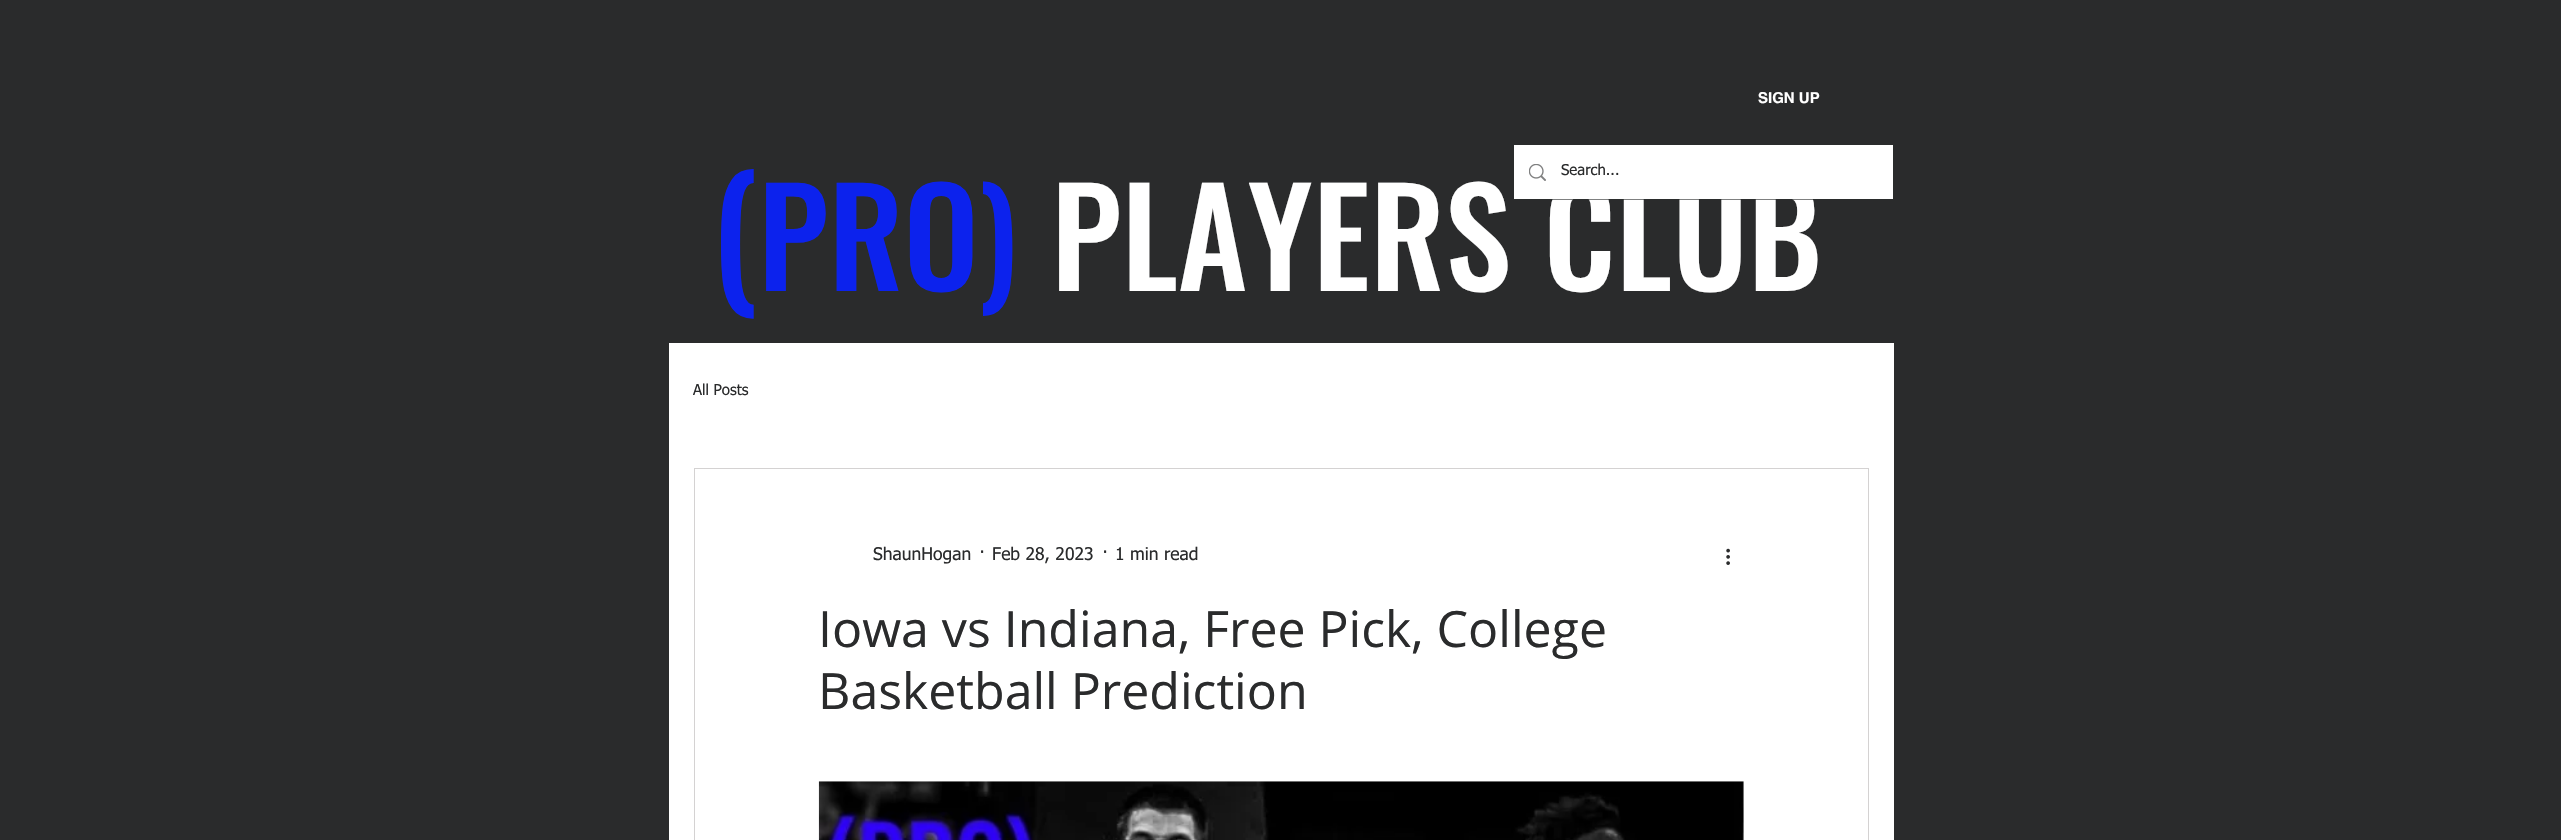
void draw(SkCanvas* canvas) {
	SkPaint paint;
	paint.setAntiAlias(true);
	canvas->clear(0xff2a2b2c);
	SkFont f1(fontMgr->matchFamilyStyle("helvetica", SkFontStyle::Bold()), 15);
	f1.setSubpixel(true);
	paint.setColor(0xffffffff);
	canvas->drawString("SIGN UP", 1758, 103, f1, paint);
	SkFont f2(fontMgr->matchFamilyStyle("Oswald", SkFontStyle(500, SkFontStyle::kNormal_Width, SkFontStyle::kUpright_Slant)), 133.75);
	f2.setSubpixel(true);
	canvas->drawString("PLAYERS CLUB", 1051, 291, f2, paint);
	paint.setStroke(true);
	paint.setStrokeWidth(1);
	paint.setColor(0x992a2b2c);
	canvas->drawRect(SkRect::MakeXYWH(1513.5, 144.5, 380, 55), paint);
	paint.setStroke(false);
	paint.setColor(0xffffffff);
	canvas->drawRect(SkRect::MakeXYWH(1514, 145, 379, 54), paint);
	canvas->drawImageRect(SkImages::DeferredFromEncodedData(SkData::MakeFromFileName("img1.png")), SkRect::MakeXYWH(1529, 164, 17, 17), SkSamplingOptions());
	SkFont f3(fontMgr->matchFamilyStyle("tahoma", SkFontStyle::Normal()), 15);
	f3.setSubpixel(true);
	paint.setColor(0xff2a2b2c);
	canvas->drawString("Search...", 1561, 175, f3, paint);
	SkFont f4(fontMgr->matchFamilyStyle("Oswald", SkFontStyle(500, SkFontStyle::kNormal_Width, SkFontStyle::kUpright_Slant)), 149);
	f4.setSubpixel(true);
	paint.setColor(0xff0c22ed);
	canvas->drawString("(", 711, 291, f4, paint);
	canvas->drawString("PRO)", 758, 291, f2, paint);
	paint.setColor(0xffffffff);
	canvas->drawRect(SkRect::MakeXYWH(669, 343, 1225, 497), paint);
	paint.setColor(0xff2a2b2c);
	canvas->drawString("All Posts", 693, 395, f3, paint);
	paint.setStroke(true);
	paint.setColor(0xffd4d2d2);
	canvas->drawRect(SkRect::MakeXYWH(694.5, 468.5, 1174, 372), paint);
	SkFont f5(fontMgr->matchFamilyStyle("tahoma", SkFontStyle::Normal()), 17.5);
	f5.setSubpixel(true);
	paint.setStroke(false);
	paint.setColor(0xff2a2b2c);
	canvas->drawString("ShaunHogan", 873, 560, f5, paint);
	canvas->drawString("·", 979, 560, f5, paint);
	canvas->drawString("Feb 28, 2023", 992, 560, f5, paint);
	canvas->drawString("·", 1102, 560, f5, paint);
	canvas->drawString("1 min read", 1115, 560, f5, paint);
	canvas->drawImageRect(SkImages::DeferredFromEncodedData(SkData::MakeFromFileName("img2.png")), SkRect::MakeXYWH(1726, 548, 4, 17), SkSamplingOptions());
	SkFont f6(fontMgr->matchFamilyStyle("Open Sans", SkFontStyle::Normal()), 50);
	f6.setSubpixel(true);
	canvas->drawString("Iowa vs Indiana, Free Pick, College", 818, 647, f6, paint);
	canvas->drawString("Basketball Prediction", 818, 709, f6, paint);
	canvas->drawImageRect(SkImages::DeferredFromEncodedData(SkData::MakeFromFileName("img3.png")), SkRect::MakeXYWH(818, 781, 926, 59), SkSamplingOptions());
}
